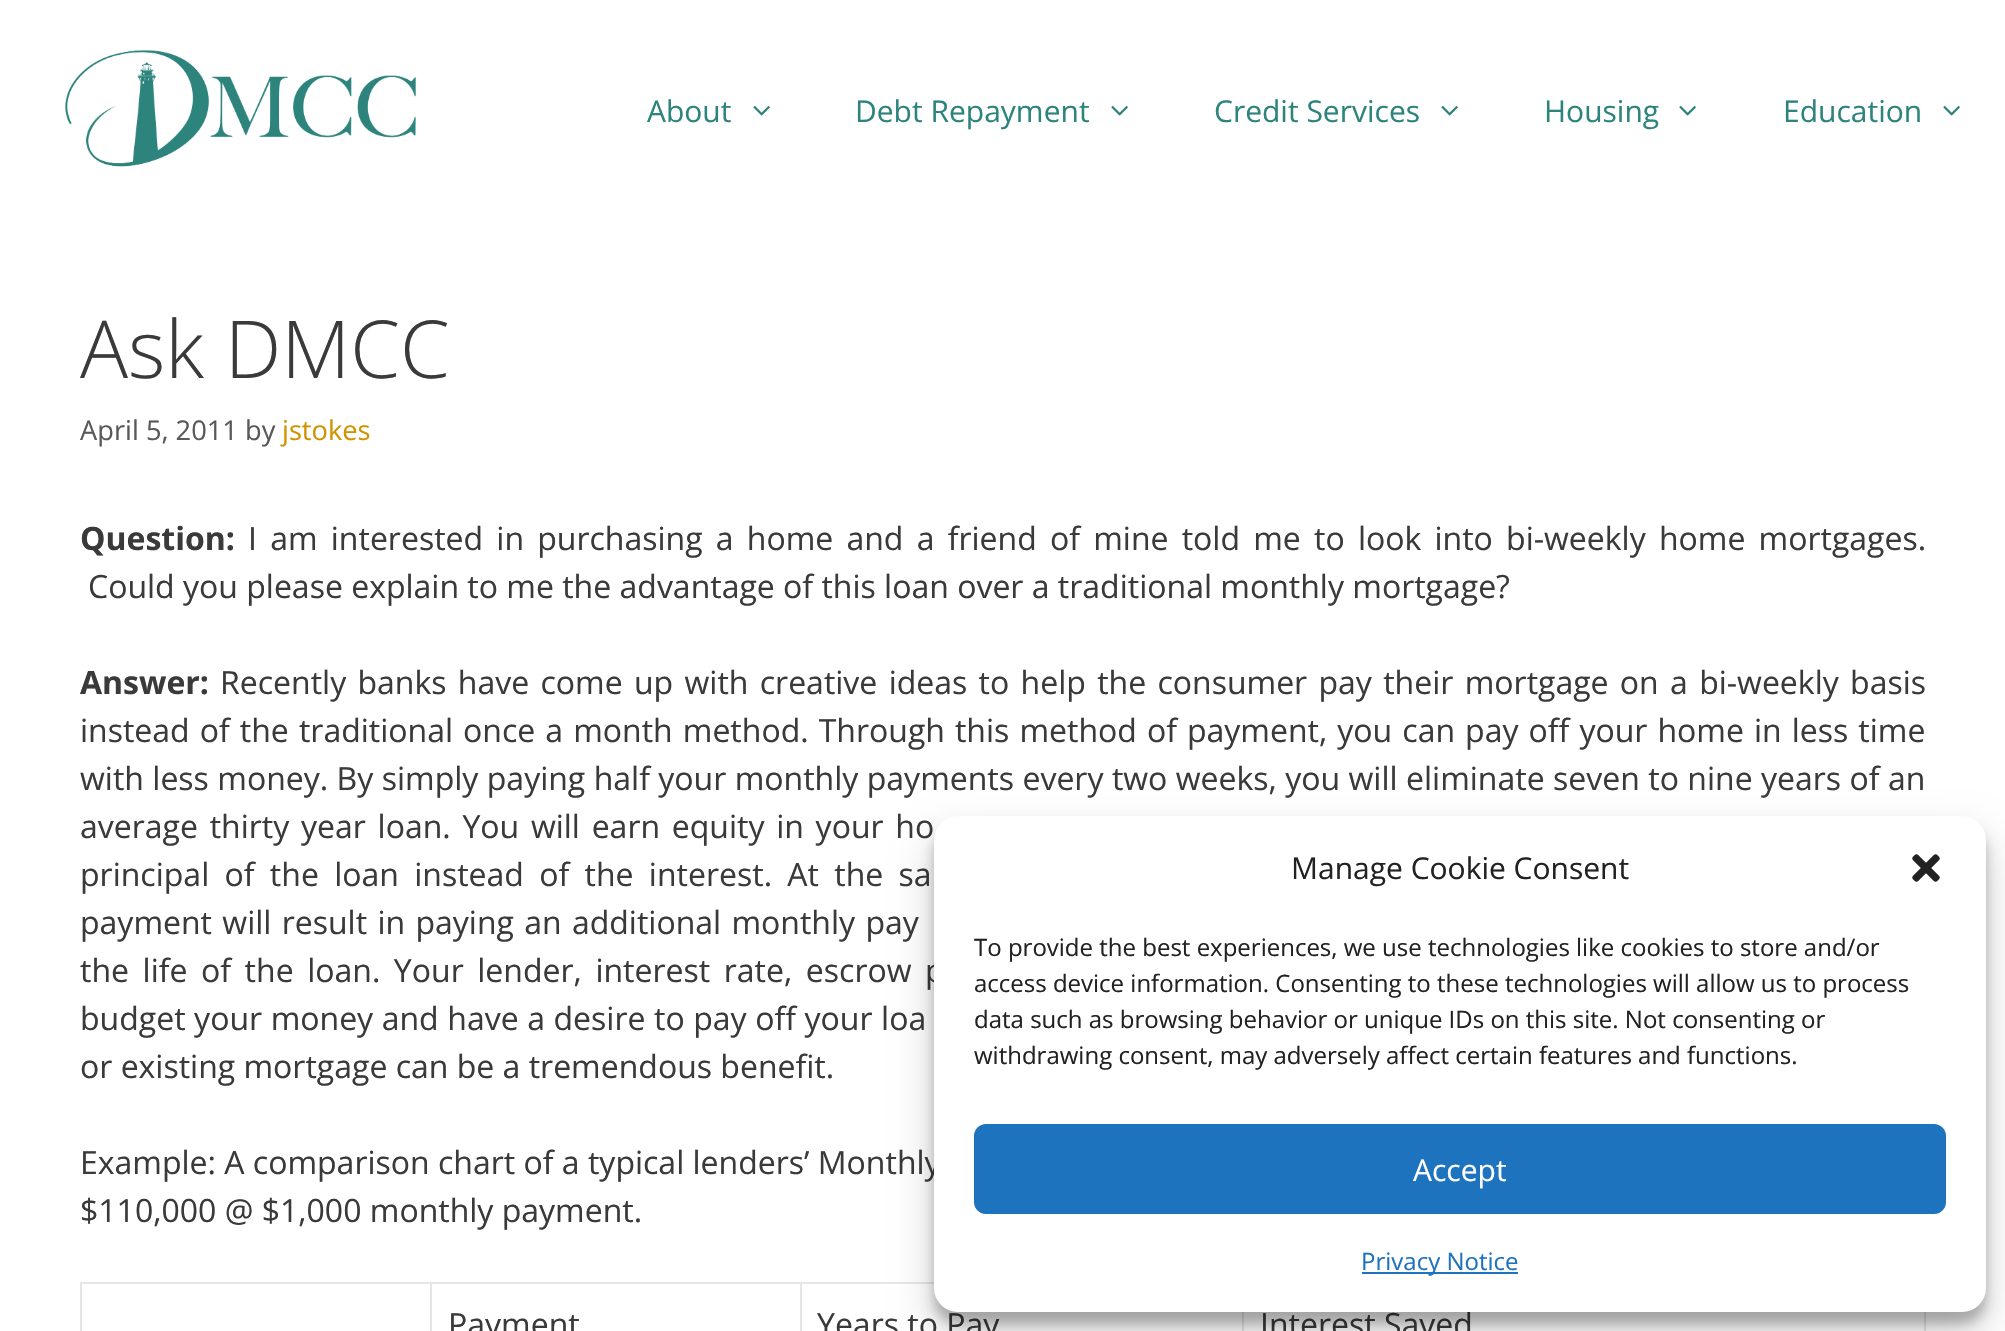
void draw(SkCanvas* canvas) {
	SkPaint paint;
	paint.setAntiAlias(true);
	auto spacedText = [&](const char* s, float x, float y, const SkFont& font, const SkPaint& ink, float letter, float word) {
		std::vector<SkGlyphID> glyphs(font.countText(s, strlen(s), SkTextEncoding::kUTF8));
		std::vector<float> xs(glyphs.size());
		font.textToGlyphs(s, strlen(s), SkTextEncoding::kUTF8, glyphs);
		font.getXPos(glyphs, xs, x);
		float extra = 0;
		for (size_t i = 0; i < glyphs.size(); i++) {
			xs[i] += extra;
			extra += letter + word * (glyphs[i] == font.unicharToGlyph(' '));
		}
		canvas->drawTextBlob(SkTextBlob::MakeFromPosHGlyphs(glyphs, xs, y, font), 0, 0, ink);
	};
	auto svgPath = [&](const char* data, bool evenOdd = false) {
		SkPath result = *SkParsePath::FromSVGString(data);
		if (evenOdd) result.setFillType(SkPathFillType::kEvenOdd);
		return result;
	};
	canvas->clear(0xffffffff);
	canvas->drawImageRect(SkImages::DeferredFromEncodedData(SkData::MakeFromFileName("img1.png")), SkRect::MakeXYWH(65, 50, 352, 117), SkSamplingOptions());
	SkFont f1(fontMgr->matchFamilyStyle("Open Sans", SkFontStyle::Normal()), 30);
	f1.setSubpixel(true);
	paint.setColor(0xff2d847d);
	canvas->drawString("About", 647, 122, f1, paint);
	canvas->drawImageRect(SkImages::DeferredFromEncodedData(SkData::MakeFromFileName("img2.png")), SkRect::MakeXYWH(753, 105, 17, 11), SkSamplingOptions());
	canvas->drawString("Debt Repayment", 855, 122, f1, paint);
	canvas->drawImageRect(SkImages::DeferredFromEncodedData(SkData::MakeFromFileName("img2.png")), SkRect::MakeXYWH(1111, 105, 17, 11), SkSamplingOptions());
	canvas->drawString("Credit Services", 1214, 122, f1, paint);
	canvas->drawImageRect(SkImages::DeferredFromEncodedData(SkData::MakeFromFileName("img2.png")), SkRect::MakeXYWH(1441, 105, 17, 11), SkSamplingOptions());
	canvas->drawString("Housing", 1544, 122, f1, paint);
	canvas->drawImageRect(SkImages::DeferredFromEncodedData(SkData::MakeFromFileName("img2.png")), SkRect::MakeXYWH(1679, 105, 17, 11), SkSamplingOptions());
	canvas->drawString("Education", 1783, 122, f1, paint);
	canvas->drawImageRect(SkImages::DeferredFromEncodedData(SkData::MakeFromFileName("img2.png")), SkRect::MakeXYWH(1943, 105, 17, 11), SkSamplingOptions());
	SkFont f2(fontMgr->matchFamilyStyle("Open Sans", SkFontStyle(300, SkFontStyle::kNormal_Width, SkFontStyle::kUpright_Slant)), 80);
	f2.setSubpixel(true);
	paint.setColor(0xff3a3a3a);
	canvas->drawString("Ask DMCC", 80, 378, f2, paint);
	SkFont f3(fontMgr->matchFamilyStyle("Open Sans", SkFontStyle::Normal()), 27.25);
	f3.setSubpixel(true);
	paint.setColor(0xff595959);
	canvas->drawString("April 5, 2011 by", 80, 440, f3, paint);
	paint.setColor(0xffd19300);
	canvas->drawString("jstokes", 282, 440, f3, paint);
	SkFont f4(fontMgr->matchFamilyStyle("Open Sans", SkFontStyle::Bold()), 32);
	f4.setSubpixel(true);
	paint.setColor(0xff3a3a3a);
	canvas->drawString("Question:", 80, 550, f4, paint);
	SkFont f5(fontMgr->matchFamilyStyle("Open Sans", SkFontStyle::Normal()), 32);
	f5.setSubpixel(true);
	spacedText("I am interested in purchasing a home and a friend of mine told me to look into bi-weekly home mortgages.", 248, 550, f5, paint, 0, 4.9);
	canvas->drawString("Could you please explain to me the advantage of this loan over a traditional monthly mortgage?", 88, 598, f5, paint);
	canvas->drawString("Answer:", 80, 694, f4, paint);
	spacedText("Recently banks have come up with creative ideas to help the consumer pay their mortgage on a bi-weekly basis", 220, 694, f5, paint, 0, 3);
	spacedText("instead of the traditional once a month method. Through this method of payment, you can pay off your home in less time", 80, 742, f5, paint, 0, 1.75);
	spacedText("with less money. By simply paying half your monthly payments every two weeks, you will eliminate seven to nine years of an", 80, 790, f5, paint, 0, 0.1);
	spacedText("average thirty year loan. You will earn equity in your ho", 80, 838, f5, paint, 0, 3.4);
	spacedText("principal of the loan instead of the interest. At the sa", 80, 886, f5, paint, 0, 7);
	spacedText("payment will result in paying an additional monthly pay", 80, 934, f5, paint, 0, 2);
	spacedText("the life of the loan. Your lender, interest rate, escrow p", 80, 982, f5, paint, 0, 5.25);
	spacedText("budget your money and have a desire to pay off your loa", 80, 1030, f5, paint, 0, 0.25);
	canvas->drawString("or existing mortgage can be a tremendous benefit.", 80, 1078, f5, paint);
	canvas->drawString("Example: A comparison chart of a typical lenders’ Monthly", 80, 1174, f5, paint);
	canvas->drawString("$110,000 @ $1,000 monthly payment.", 80, 1222, f5, paint);
	paint.setColor(0xffe6e6e6);
	canvas->drawPath(svgPath("M80 1282H1926V1284H82Z"), paint);
	paint.setColor(0x1a000000);
	canvas->drawPath(svgPath("M80 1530V1282L82 1284V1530Z"), paint);
	paint.setColor(0xffe6e6e6);
	canvas->drawPath(svgPath("M432 1284V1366L430 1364V1284Z"), paint);
	canvas->drawPath(svgPath("M802 1284V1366L800 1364V1284Z"), paint);
	paint.setColor(0xff3a3a3a);
	canvas->drawString("Payment", 448, 1336, f5, paint);
	paint.setColor(0xffe6e6e6);
	canvas->drawPath(svgPath("M1244 1284V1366L1242 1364V1284Z"), paint);
	paint.setColor(0xff3a3a3a);
	canvas->drawString("Years to Pay", 817, 1336, f5, paint);
	paint.setColor(0xffe6e6e6);
	canvas->drawPath(svgPath("M1926 1284V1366L1924 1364V1284Z"), paint);
	paint.setColor(0xff3a3a3a);
	canvas->drawString("Interest Saved", 1260, 1336, f5, paint);
	paint.setColor(0x3b000000);
	paint.setMaskFilter(SkMaskFilter::MakeBlur(kNormal_SkBlurStyle, 6));
	canvas->drawRoundRect(SkRect::MakeXYWH(934, 828, 1052, 496), 24, 24, paint);
	paint.setMaskFilter(nullptr);
	paint.setColor(0x30000000);
	paint.setMaskFilter(SkMaskFilter::MakeBlur(kNormal_SkBlurStyle, 20));
	canvas->drawRoundRect(SkRect::MakeXYWH(934, 836, 1052, 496), 24, 24, paint);
	paint.setMaskFilter(nullptr);
	paint.setColor(0xffffffff);
	canvas->drawRoundRect(SkRect::MakeXYWH(934, 816, 1052, 496), 24, 24, paint);
	paint.setColor(0xff222222);
	canvas->drawString("Manage Cookie Consent", 1291, 879, f1, paint);
	canvas->drawImageRect(SkImages::DeferredFromEncodedData(SkData::MakeFromFileName("img3.png")), SkRect::MakeXYWH(1912, 854, 28, 28), SkSamplingOptions());
	SkFont f6(fontMgr->matchFamilyStyle("Open Sans", SkFontStyle::Normal()), 24);
	f6.setSubpixel(true);
	canvas->drawString("To provide the best experiences, we use technologies like cookies to store and/or", 974, 956, f6, paint);
	canvas->drawString("access device information. Consenting to these technologies will allow us to process", 974, 992, f6, paint);
	canvas->drawString("data such as browsing behavior or unique IDs on this site. Not consenting or", 974, 1028, f6, paint);
	canvas->drawString("withdrawing consent, may adversely affect certain features and functions.", 974, 1064, f6, paint);
	paint.setColor(0xff1e73be);
	canvas->drawRoundRect(SkRect::MakeXYWH(975, 1125, 970, 88), 11, 11, paint);
	paint.setStroke(true);
	paint.setStrokeWidth(2);
	canvas->drawRoundRect(SkRect::MakeXYWH(975, 1125, 970, 88), 11, 11, paint);
	paint.setStroke(false);
	paint.setColor(0xffffffff);
	canvas->drawString("Accept", 1413, 1181, f1, paint);
	paint.setColor(0xff1e73be);
	canvas->drawRect(SkRect::MakeXYWH(1362, 1272, 156, 2), paint);
	canvas->drawString("Privacy Notice", 1361, 1270, f6, paint);
}
